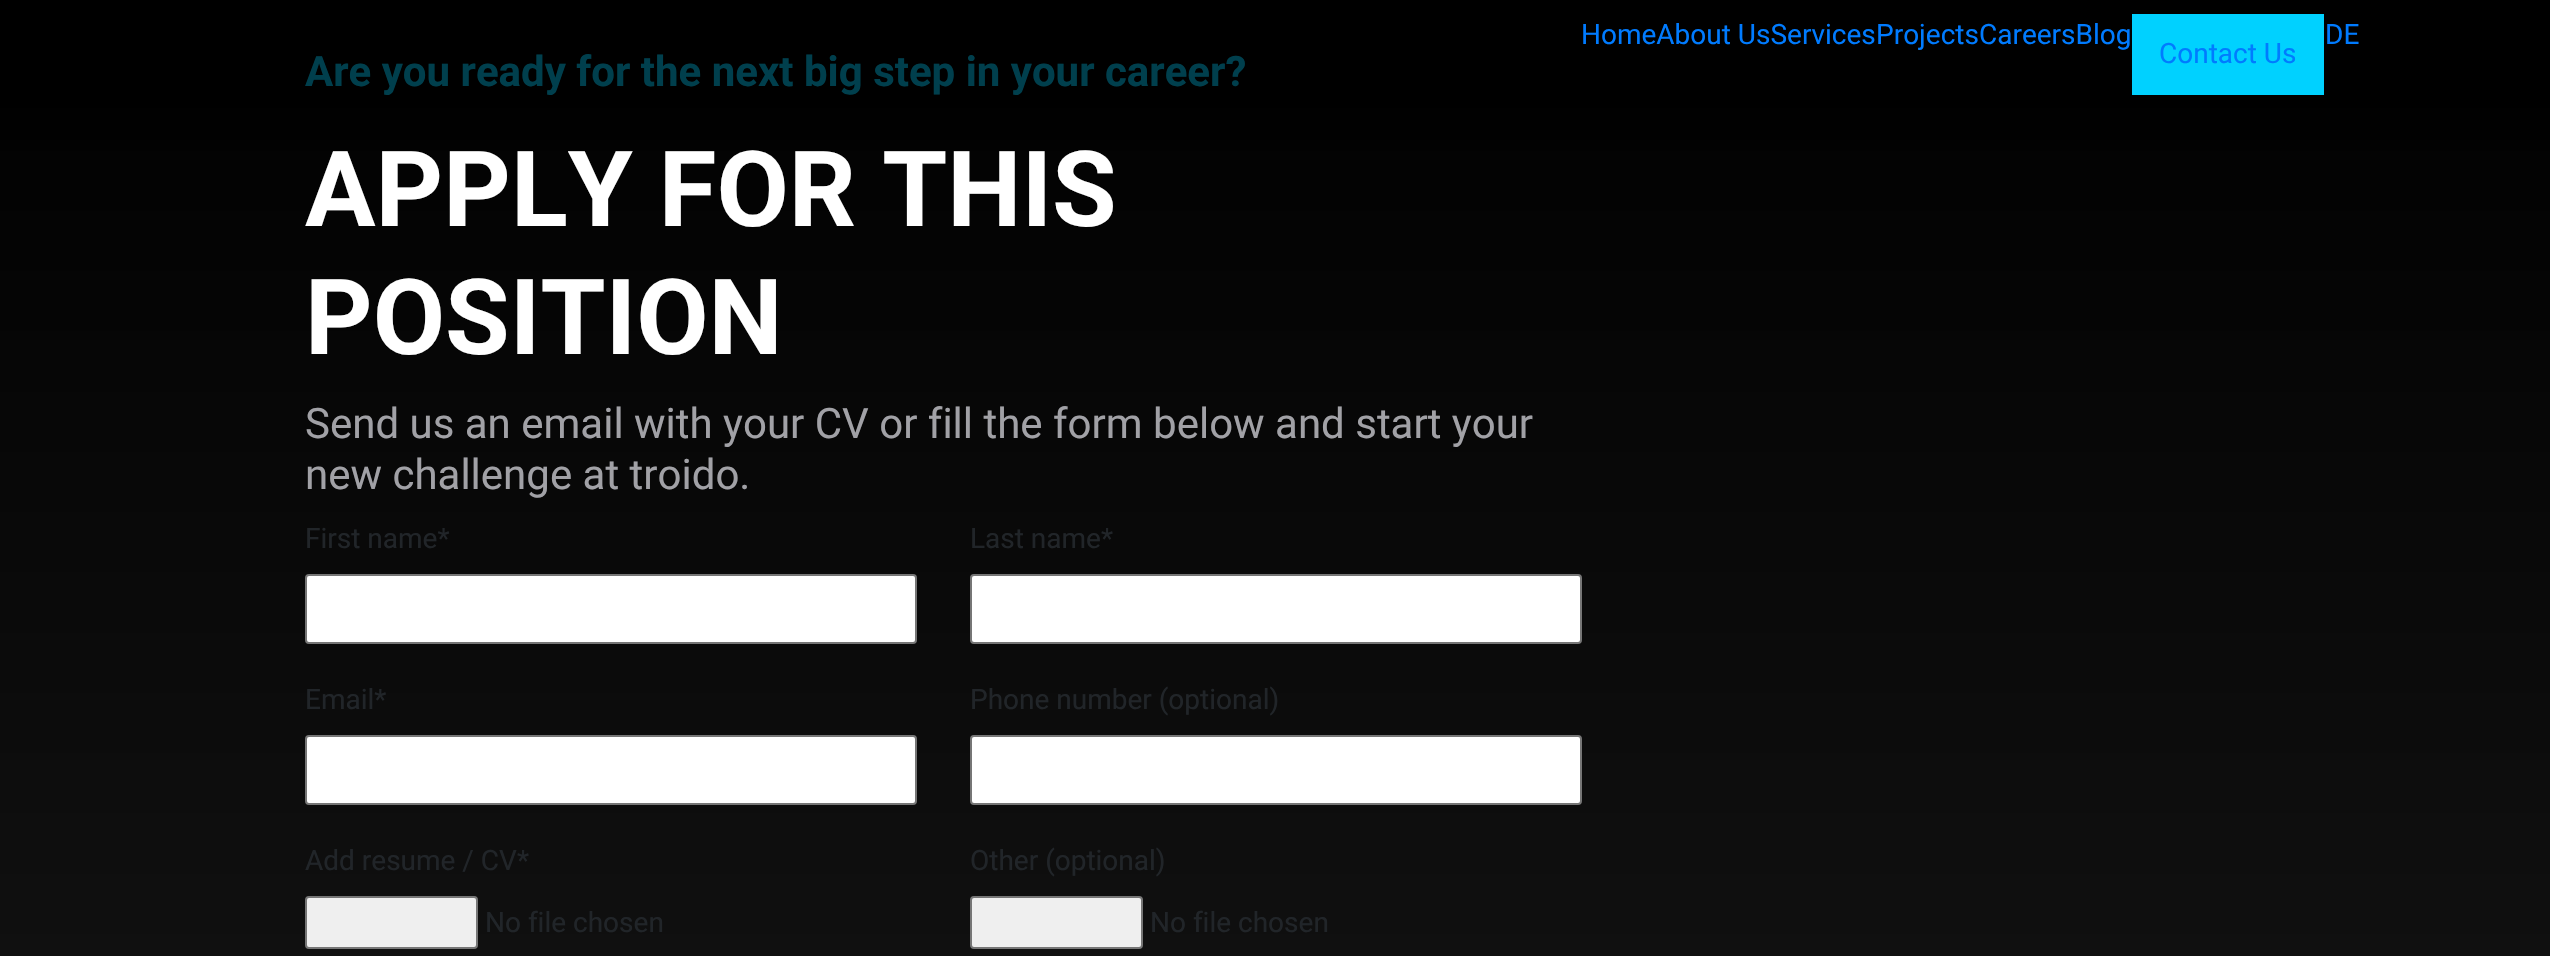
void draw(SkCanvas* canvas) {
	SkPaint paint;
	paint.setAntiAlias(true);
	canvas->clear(0xffffffff);
	{
		const SkColor colors[] = {0xff000000, 0xff050505, 0xff050505};
		const float stops[] = {0, 0.59, 1};
		const SkPoint ends[] = {{1276, 0}, {1276, 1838}};
		paint.setShader(SkGradientShader::MakeLinear(ends, colors, stops, 3, SkTileMode::kClamp));
		paint.setAlpha(255);
	}
	canvas->drawRect(SkRect::MakeXYWH(0, 0, 2550, 140), paint);
	SkFont f1(fontMgr->matchFamilyStyle("Roboto", SkFontStyle::Normal()), 28);
	f1.setSubpixel(true);
	paint.setShader(nullptr);
	paint.setColor(0xff007bff);
	canvas->drawString("HomeAbout UsServices", 1581, 44, f1, paint);
	canvas->drawString("ProjectsCareersBlog", 1876, 44, f1, paint);
	canvas->drawString("DE", 2325, 44, f1, paint);
	paint.setColor(0xff00d1ff);
	canvas->drawRect(SkRect::MakeXYWH(2132, 14, 192, 81), paint);
	paint.setColor(0xff007bff);
	canvas->drawString("Contact Us", 2159, 63, f1, paint);
	{
		const SkColor colors[] = {0xff000000, 0xff121212, 0xff121212};
		const float stops[] = {0, 0.59, 1};
		const SkPoint ends[] = {{1276, 0}, {1276, 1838}};
		paint.setShader(SkGradientShader::MakeLinear(ends, colors, stops, 3, SkTileMode::kClamp));
		paint.setAlpha(255);
	}
	canvas->drawRect(SkRect::MakeXYWH(0, 140, 2550, 816), paint);
	SkFont f2(fontMgr->matchFamilyStyle("Roboto", SkFontStyle::Bold()), 42);
	f2.setSubpixel(true);
	paint.setShader(nullptr);
	paint.setColor(0xff003f4d);
	canvas->drawString("Are you ready for the next big step in your career?", 305, 86, f2, paint);
	SkFont f3(fontMgr->matchFamilyStyle("Roboto", SkFontStyle::Bold()), 105);
	f3.setSubpixel(true);
	paint.setColor(0xffffffff);
	canvas->drawString("APPLY FOR THIS", 305, 226, f3, paint);
	canvas->drawString("POSITION", 305, 354, f3, paint);
	SkFont f4(fontMgr->matchFamilyStyle("Roboto", SkFontStyle::Normal()), 42);
	f4.setSubpixel(true);
	paint.setColor(0xffa1a1a6);
	canvas->drawString("Send us an email with your CV or fill the form below and start your", 305, 438, f4, paint);
	canvas->drawString("new challenge at troido.", 305, 489, f4, paint);
	paint.setColor(0xff212529);
	canvas->drawString("First name*", 305, 548, f1, paint);
	paint.setColor(0xffffffff);
	canvas->drawRoundRect(SkRect::MakeXYWH(306, 575, 610, 68), 3, 3, paint);
	paint.setStroke(true);
	paint.setStrokeWidth(2);
	paint.setColor(0xff767676);
	canvas->drawRoundRect(SkRect::MakeXYWH(306, 575, 610, 68), 3, 3, paint);
	paint.setStroke(false);
	paint.setColor(0xff212529);
	canvas->drawString("Last name*", 970, 548, f1, paint);
	paint.setColor(0xffffffff);
	canvas->drawRoundRect(SkRect::MakeXYWH(971, 575, 610, 68), 3, 3, paint);
	paint.setStroke(true);
	paint.setColor(0xff767676);
	canvas->drawRoundRect(SkRect::MakeXYWH(971, 575, 610, 68), 3, 3, paint);
	paint.setStroke(false);
	paint.setColor(0xff212529);
	canvas->drawString("Email*", 305, 709, f1, paint);
	paint.setColor(0xffffffff);
	canvas->drawRoundRect(SkRect::MakeXYWH(306, 736, 610, 68), 3, 3, paint);
	paint.setStroke(true);
	paint.setColor(0xff767676);
	canvas->drawRoundRect(SkRect::MakeXYWH(306, 736, 610, 68), 3, 3, paint);
	paint.setStroke(false);
	paint.setColor(0xff212529);
	canvas->drawString("Phone number (optional)", 970, 709, f1, paint);
	paint.setColor(0xffffffff);
	canvas->drawRoundRect(SkRect::MakeXYWH(971, 736, 610, 68), 3, 3, paint);
	paint.setStroke(true);
	paint.setColor(0xff767676);
	canvas->drawRoundRect(SkRect::MakeXYWH(971, 736, 610, 68), 3, 3, paint);
	paint.setStroke(false);
	paint.setColor(0xff212529);
	canvas->drawString("Add resume / CV*", 305, 870, f1, paint);
	paint.setColor(0xffefefef);
	canvas->drawRoundRect(SkRect::MakeXYWH(306, 897, 171, 51), 3, 3, paint);
	paint.setStroke(true);
	paint.setColor(0xff767676);
	canvas->drawRoundRect(SkRect::MakeXYWH(306, 897, 171, 51), 3, 3, paint);
	paint.setStroke(false);
	paint.setColor(0xff212529);
	canvas->drawString("No file chosen", 485, 932, f1, paint);
	canvas->drawString("Other (optional)", 970, 870, f1, paint);
	paint.setColor(0xffefefef);
	canvas->drawRoundRect(SkRect::MakeXYWH(971, 897, 171, 51), 3, 3, paint);
	paint.setStroke(true);
	paint.setColor(0xff767676);
	canvas->drawRoundRect(SkRect::MakeXYWH(971, 897, 171, 51), 3, 3, paint);
	paint.setStroke(false);
	paint.setColor(0xff212529);
	canvas->drawString("No file chosen", 1150, 932, f1, paint);
}
